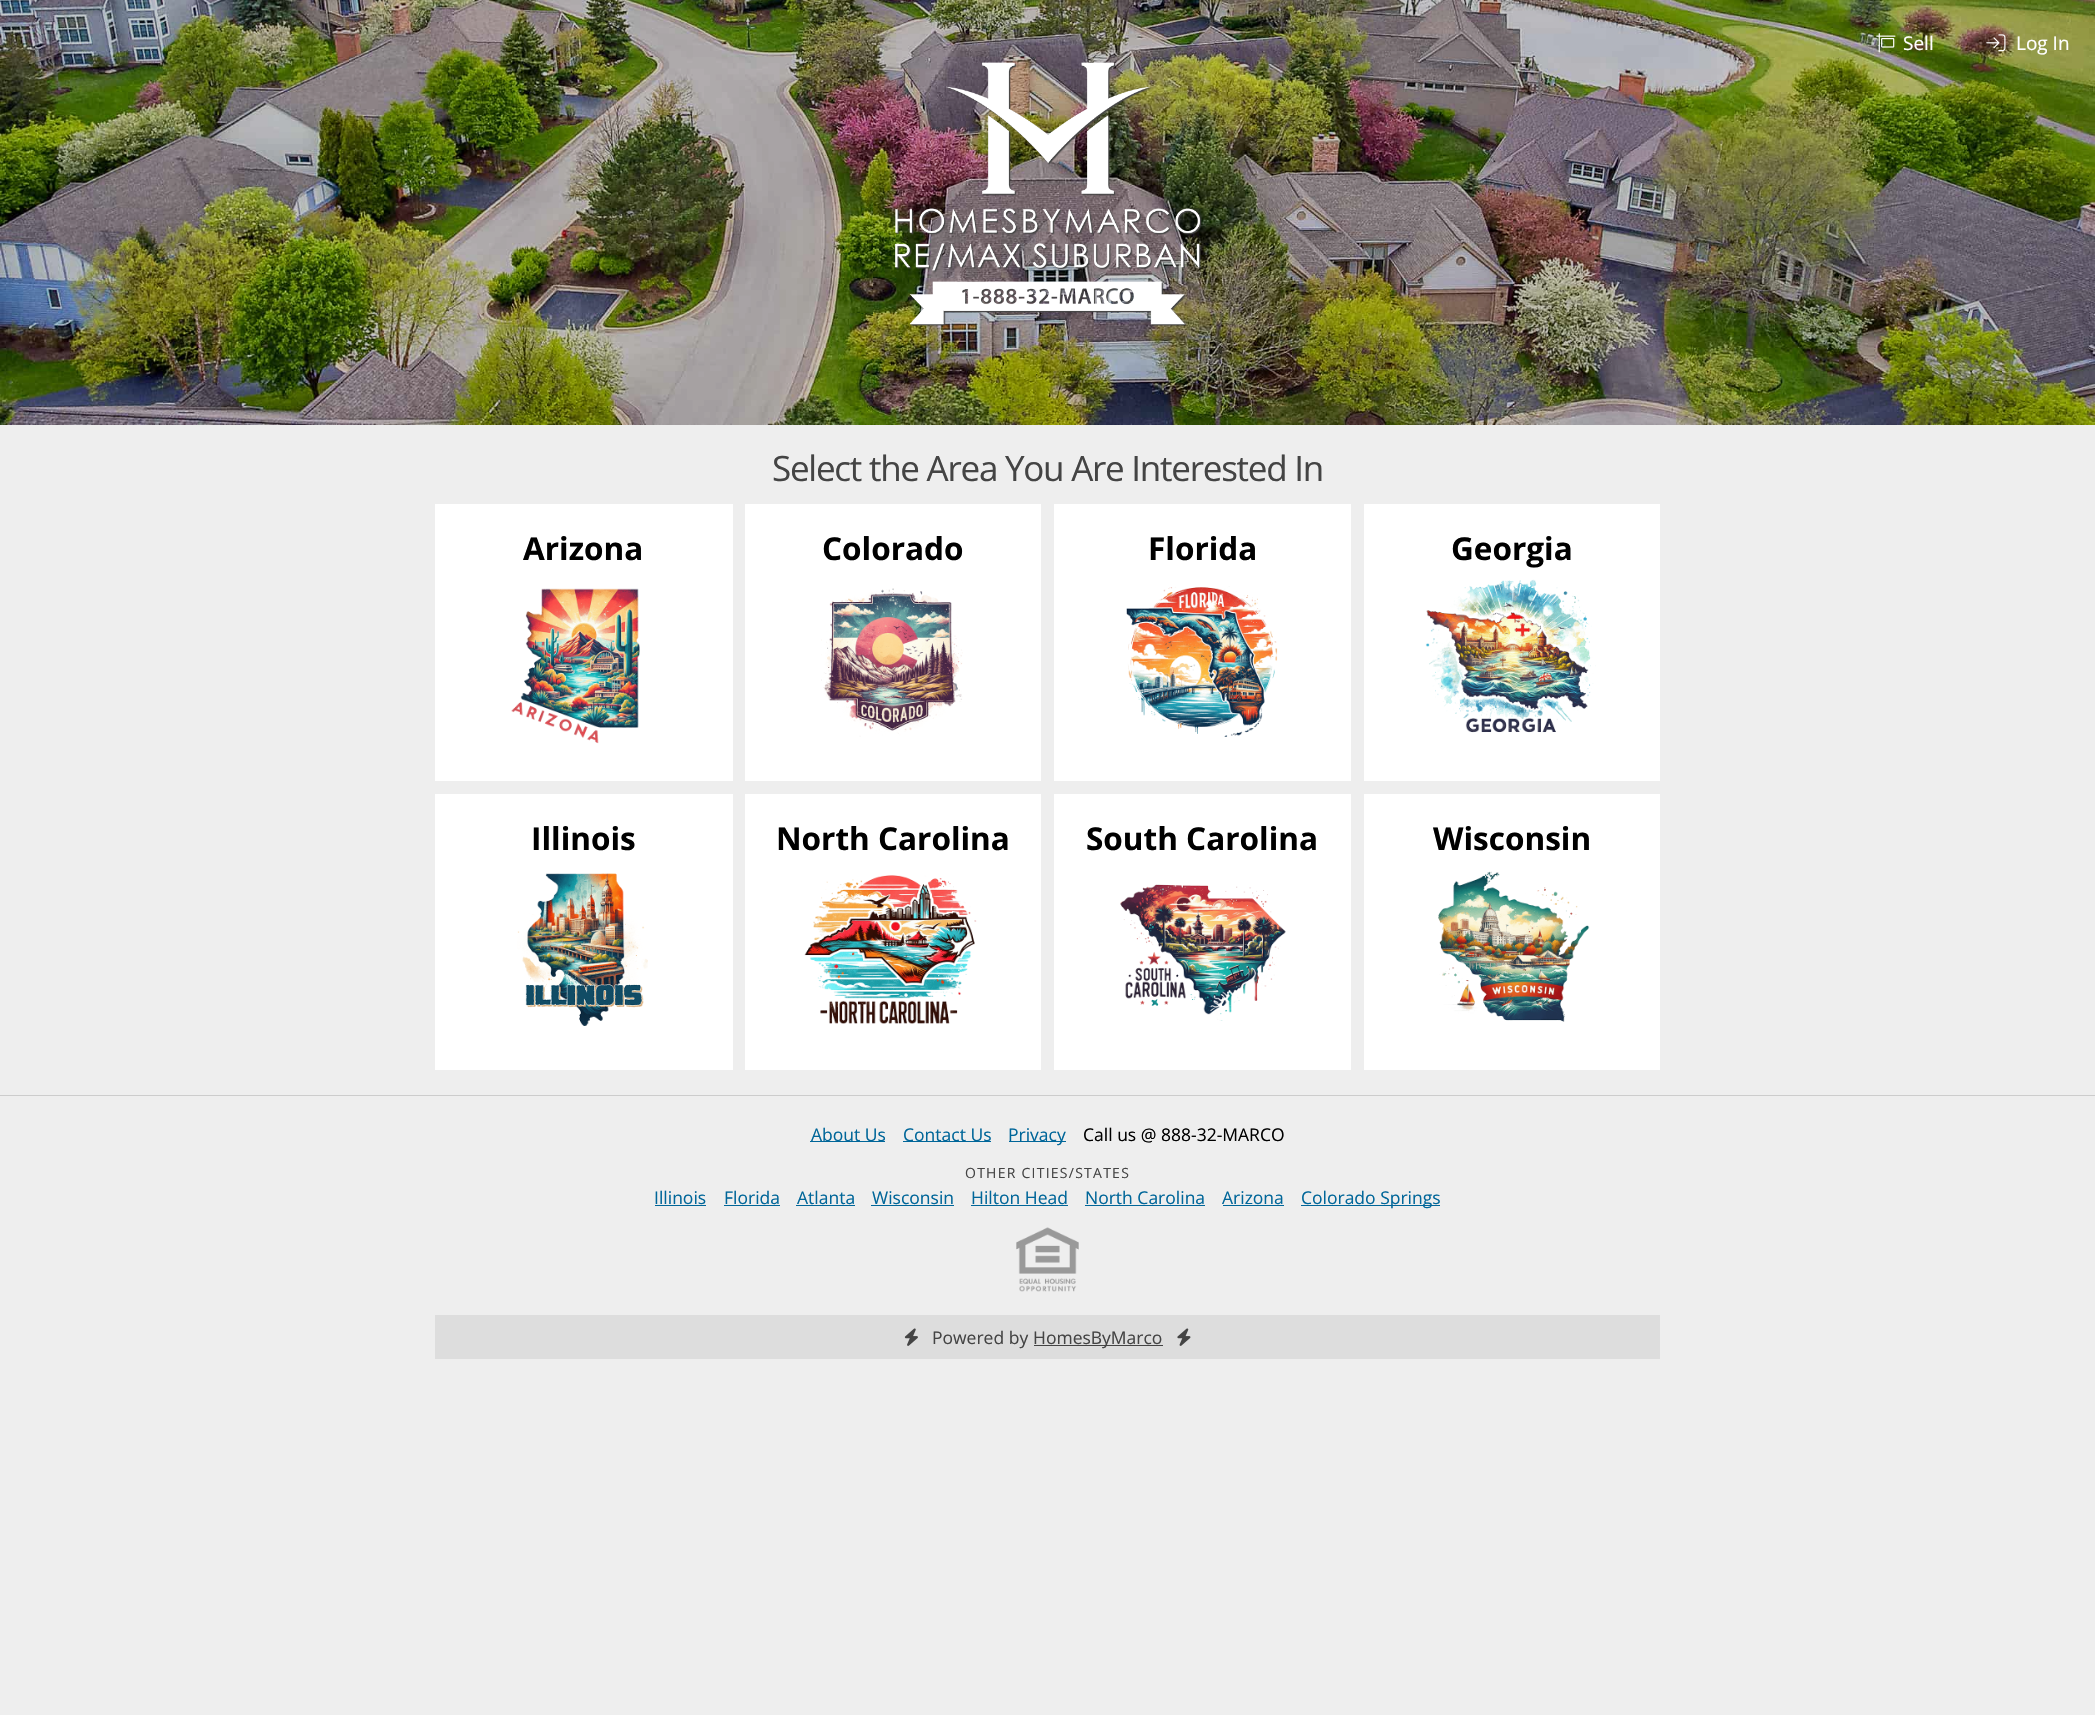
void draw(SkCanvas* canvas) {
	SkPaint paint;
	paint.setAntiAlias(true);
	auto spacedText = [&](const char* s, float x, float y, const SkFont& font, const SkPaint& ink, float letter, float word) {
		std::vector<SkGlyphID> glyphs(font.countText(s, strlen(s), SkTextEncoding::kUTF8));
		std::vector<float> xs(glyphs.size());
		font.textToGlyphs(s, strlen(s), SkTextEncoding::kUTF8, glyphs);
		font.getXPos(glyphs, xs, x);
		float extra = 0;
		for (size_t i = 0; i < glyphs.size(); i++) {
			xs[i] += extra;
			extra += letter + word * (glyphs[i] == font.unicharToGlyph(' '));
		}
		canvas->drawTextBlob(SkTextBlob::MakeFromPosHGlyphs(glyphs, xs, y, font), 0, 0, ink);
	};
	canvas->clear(0xffeeeeee);
	canvas->drawImageRect(SkImages::DeferredFromEncodedData(SkData::MakeFromFileName("img1.png")), SkRect::MakeXYWH(0, 0, 2095, 425), SkSamplingOptions());
	canvas->drawImageRect(SkImages::DeferredFromEncodedData(SkData::MakeFromFileName("img2.png")), SkRect::MakeXYWH(895, 62, 307, 265), SkSamplingOptions());
	canvas->drawImageRect(SkImages::DeferredFromEncodedData(SkData::MakeFromFileName("img3.png")), SkRect::MakeXYWH(1876, 33, 20, 20), SkSamplingOptions());
	SkFont f1(fontMgr->matchFamilyStyle("Open Sans", SkFontStyle::Normal()), 19);
	f1.setSubpixel(true);
	paint.setColor(0xffffffff);
	canvas->drawString("Sell", 1903, 50, f1, paint);
	canvas->drawImageRect(SkImages::DeferredFromEncodedData(SkData::MakeFromFileName("img4.png")), SkRect::MakeXYWH(1986, 34, 20, 18), SkSamplingOptions());
	canvas->drawString("Log In", 2016, 50, f1, paint);
	SkFont f2(fontMgr->matchFamilyStyle("Open Sans", SkFontStyle::Normal()), 35);
	f2.setSubpixel(true);
	paint.setColor(0xff444444);
	spacedText("Select the Area You Are Interested In", 772, 481, f2, paint, -1.25, 0);
	paint.setColor(0xffffffff);
	canvas->drawRect(SkRect::MakeXYWH(435, 504, 298, 277), paint);
	SkFont f3(fontMgr->matchFamilyStyle("Open Sans", SkFontStyle::Bold()), 31.5);
	f3.setSubpixel(true);
	paint.setColor(0xff000000);
	canvas->drawString("Arizona", 523, 560, f3, paint);
	canvas->drawImageRect(SkImages::DeferredFromEncodedData(SkData::MakeFromFileName("img5.png")), SkRect::MakeXYWH(511, 588, 129, 156), SkSamplingOptions());
	paint.setColor(0xffffffff);
	canvas->drawRect(SkRect::MakeXYWH(745, 504, 296, 277), paint);
	paint.setColor(0xff000000);
	canvas->drawString("Colorado", 822, 560, f3, paint);
	canvas->drawImageRect(SkImages::DeferredFromEncodedData(SkData::MakeFromFileName("img6.png")), SkRect::MakeXYWH(821, 588, 142, 149), SkSamplingOptions());
	paint.setColor(0xffffffff);
	canvas->drawRect(SkRect::MakeXYWH(1054, 504, 297, 277), paint);
	paint.setColor(0xff000000);
	canvas->drawString("Florida", 1148, 560, f3, paint);
	canvas->drawImageRect(SkImages::DeferredFromEncodedData(SkData::MakeFromFileName("img7.png")), SkRect::MakeXYWH(1126, 586, 152, 151), SkSamplingOptions());
	paint.setColor(0xffffffff);
	canvas->drawRect(SkRect::MakeXYWH(1364, 504, 296, 277), paint);
	paint.setColor(0xff000000);
	canvas->drawString("Georgia", 1451, 560, f3, paint);
	canvas->drawImageRect(SkImages::DeferredFromEncodedData(SkData::MakeFromFileName("img8.png")), SkRect::MakeXYWH(1425, 579, 171, 154), SkSamplingOptions());
	paint.setColor(0xffffffff);
	canvas->drawRect(SkRect::MakeXYWH(435, 794, 298, 276), paint);
	paint.setColor(0xff000000);
	canvas->drawString("Illinois", 531, 850, f3, paint);
	canvas->drawImageRect(SkImages::DeferredFromEncodedData(SkData::MakeFromFileName("img9.png")), SkRect::MakeXYWH(517, 873, 131, 153), SkSamplingOptions());
	paint.setColor(0xffffffff);
	canvas->drawRect(SkRect::MakeXYWH(745, 794, 296, 276), paint);
	paint.setColor(0xff000000);
	canvas->drawString("North Carolina", 776, 850, f3, paint);
	canvas->drawImageRect(SkImages::DeferredFromEncodedData(SkData::MakeFromFileName("img10.png")), SkRect::MakeXYWH(804, 875, 173, 149), SkSamplingOptions());
	paint.setColor(0xffffffff);
	canvas->drawRect(SkRect::MakeXYWH(1054, 794, 297, 276), paint);
	paint.setColor(0xff000000);
	canvas->drawString("South Carolina", 1086, 850, f3, paint);
	canvas->drawImageRect(SkImages::DeferredFromEncodedData(SkData::MakeFromFileName("img11.png")), SkRect::MakeXYWH(1120, 884, 166, 137), SkSamplingOptions());
	paint.setColor(0xffffffff);
	canvas->drawRect(SkRect::MakeXYWH(1364, 794, 296, 276), paint);
	paint.setColor(0xff000000);
	canvas->drawString("Wisconsin", 1433, 850, f3, paint);
	canvas->drawImageRect(SkImages::DeferredFromEncodedData(SkData::MakeFromFileName("img12.png")), SkRect::MakeXYWH(1438, 871, 152, 151), SkSamplingOptions());
	paint.setColor(0xffcccccc);
	canvas->drawRect(SkRect::MakeXYWH(0, 1095, 2095, 1), paint);
	paint.setColor(0xff006699);
	canvas->drawRect(SkRect::MakeXYWH(810, 1141, 75, 1), paint);
	SkFont f4(fontMgr->matchFamilyStyle("Open Sans", SkFontStyle::Normal()), 17.5);
	f4.setSubpixel(true);
	canvas->drawString("About Us", 811, 1141, f4, paint);
	canvas->drawRect(SkRect::MakeXYWH(903, 1141, 88, 1), paint);
	canvas->drawString("Contact Us", 903, 1141, f4, paint);
	canvas->drawRect(SkRect::MakeXYWH(1009, 1141, 57, 1), paint);
	canvas->drawString("Privacy", 1008, 1141, f4, paint);
	paint.setColor(0xff000000);
	canvas->drawString("Call us @ 888-32-MARCO", 1083, 1141, f4, paint);
	SkFont f5(fontMgr->matchFamilyStyle("Open Sans", SkFontStyle::Normal()), 14);
	f5.setSubpixel(true);
	paint.setColor(0xff444444);
	spacedText("OTHER CITIES/STATES", 965, 1178, f5, paint, 1.25, 0);
	paint.setColor(0xff006699);
	canvas->drawString("Illinois", 654, 1204, f4, paint);
	canvas->drawRect(SkRect::MakeXYWH(655, 1205, 51, 1), paint);
	canvas->drawString("Florida", 724, 1204, f4, paint);
	canvas->drawRect(SkRect::MakeXYWH(724, 1205, 56, 1), paint);
	canvas->drawString("Atlanta", 797, 1204, f4, paint);
	canvas->drawRect(SkRect::MakeXYWH(796, 1205, 59, 1), paint);
	canvas->drawString("Wisconsin", 872, 1204, f4, paint);
	canvas->drawRect(SkRect::MakeXYWH(871, 1205, 83, 1), paint);
	canvas->drawString("Hilton Head", 971, 1204, f4, paint);
	canvas->drawRect(SkRect::MakeXYWH(971, 1205, 97, 1), paint);
	canvas->drawString("North Carolina", 1085, 1204, f4, paint);
	canvas->drawRect(SkRect::MakeXYWH(1085, 1205, 120, 1), paint);
	canvas->drawString("Arizona", 1222, 1204, f4, paint);
	canvas->drawRect(SkRect::MakeXYWH(1223, 1205, 61, 1), paint);
	canvas->drawRect(SkRect::MakeXYWH(1301, 1205, 139, 1), paint);
	canvas->drawString("Colorado Springs", 1301, 1204, f4, paint);
	canvas->drawImageRect(SkImages::DeferredFromEncodedData(SkData::MakeFromFileName("img13.png")), SkRect::MakeXYWH(1016, 1227, 63, 65), SkSamplingOptions());
	paint.setColor(0xffdddddd);
	canvas->drawRect(SkRect::MakeXYWH(435, 1315, 1225, 44), paint);
	canvas->drawImageRect(SkImages::DeferredFromEncodedData(SkData::MakeFromFileName("img14.png")), SkRect::MakeXYWH(904, 1328, 14, 18), SkSamplingOptions());
	paint.setColor(0xff444444);
	canvas->drawString("Powered by", 932, 1344, f4, paint);
	canvas->drawRect(SkRect::MakeXYWH(1034, 1345, 129, 1), paint);
	canvas->drawString("HomesByMarco", 1033, 1344, f4, paint);
	canvas->drawImageRect(SkImages::DeferredFromEncodedData(SkData::MakeFromFileName("img15.png")), SkRect::MakeXYWH(1177, 1328, 14, 18), SkSamplingOptions());
}
